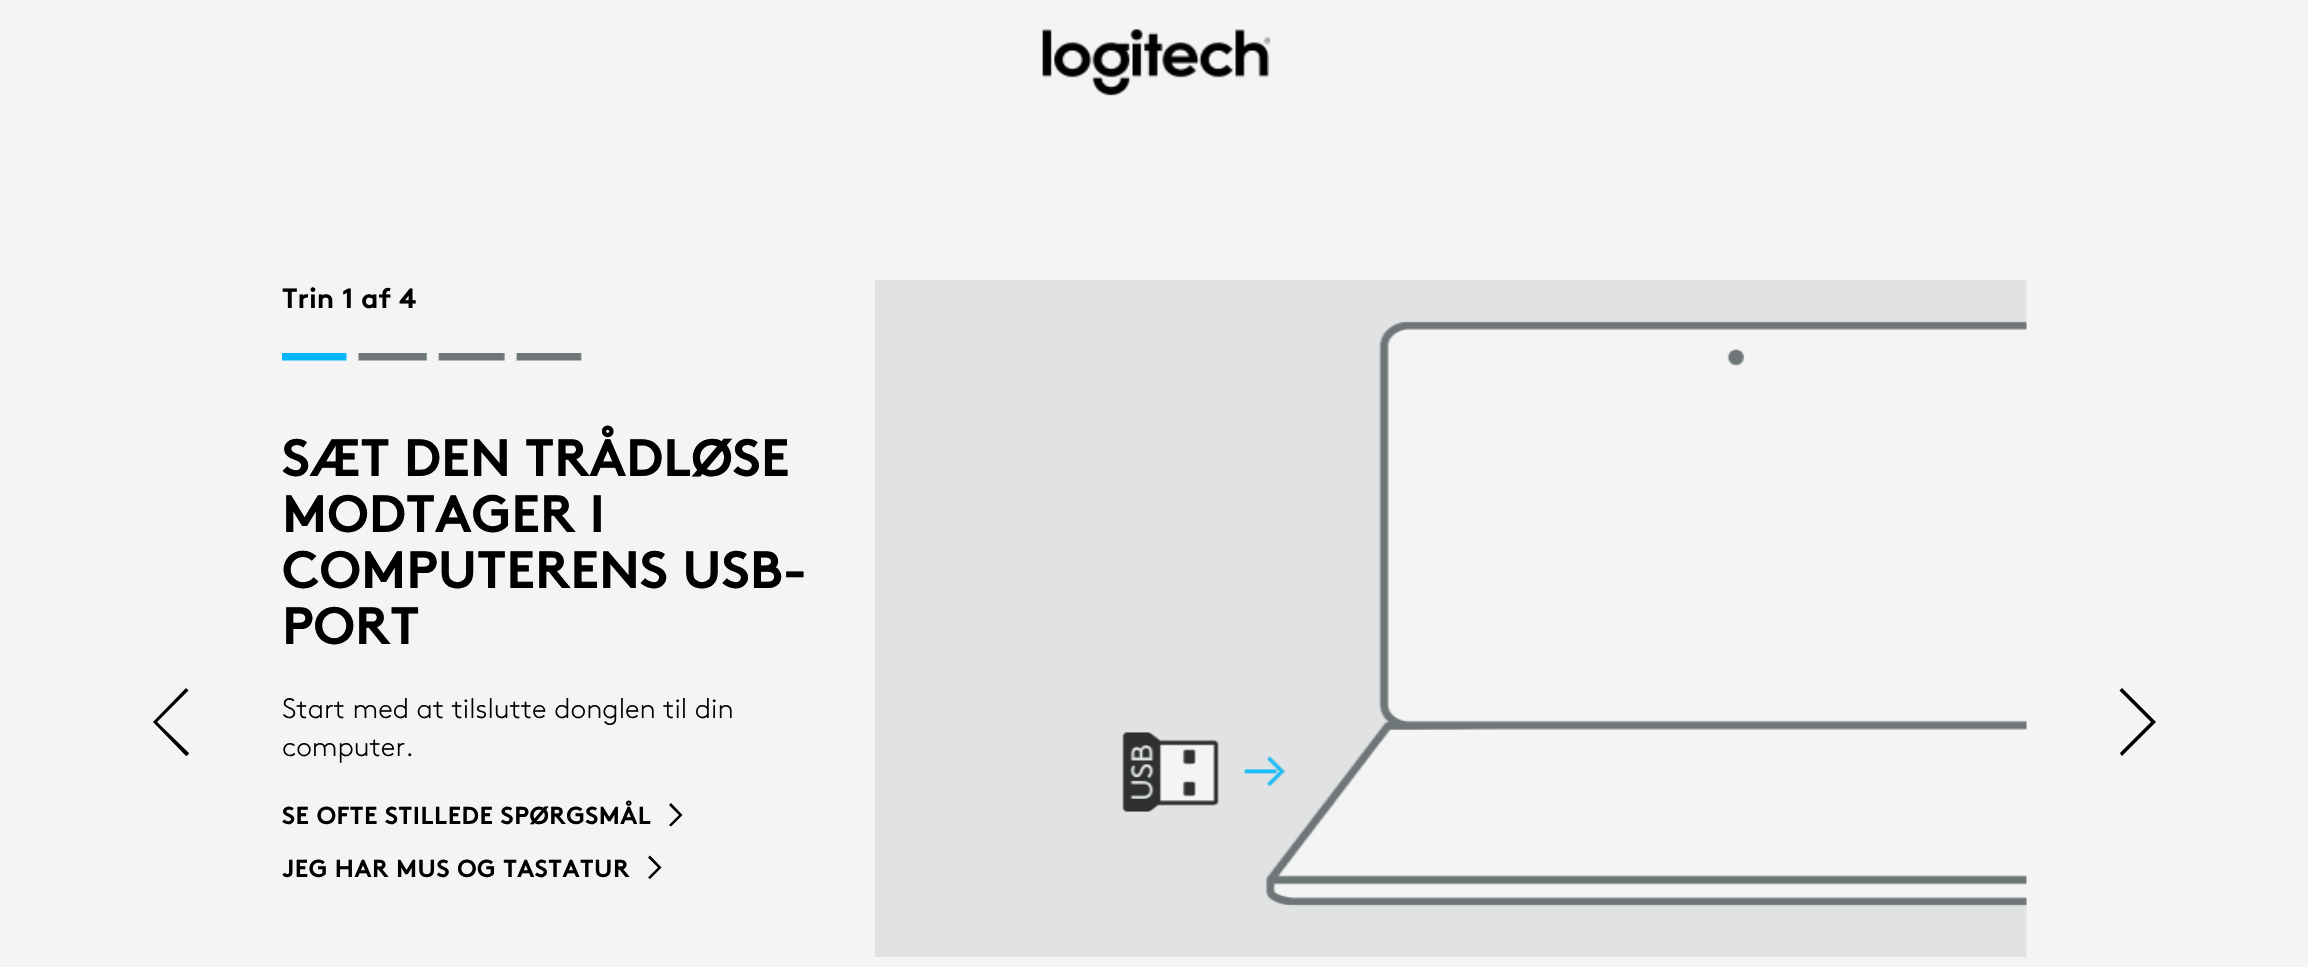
void draw(SkCanvas* canvas) {
	SkPaint paint;
	paint.setAntiAlias(true);
	auto spacedText = [&](const char* s, float x, float y, const SkFont& font, const SkPaint& ink, float letter, float word) {
		std::vector<SkGlyphID> glyphs(font.countText(s, strlen(s), SkTextEncoding::kUTF8));
		std::vector<float> xs(glyphs.size());
		font.textToGlyphs(s, strlen(s), SkTextEncoding::kUTF8, glyphs);
		font.getXPos(glyphs, xs, x);
		float extra = 0;
		for (size_t i = 0; i < glyphs.size(); i++) {
			xs[i] += extra;
			extra += letter + word * (glyphs[i] == font.unicharToGlyph(' '));
		}
		canvas->drawTextBlob(SkTextBlob::MakeFromPosHGlyphs(glyphs, xs, y, font), 0, 0, ink);
	};
	auto svgPath = [&](const char* data, bool evenOdd = false) {
		SkPath result = *SkParsePath::FromSVGString(data);
		if (evenOdd) result.setFillType(SkPathFillType::kEvenOdd);
		return result;
	};
	canvas->clear(0xfff4f4f4);
	canvas->drawImageRect(SkImages::DeferredFromEncodedData(SkData::MakeFromFileName("img1.png")), SkRect::MakeXYWH(1042, 29, 229, 67), SkSamplingOptions());
	SkFont f1(fontMgr->matchFamilyStyle("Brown", SkFontStyle::Bold()), 28);
	f1.setSubpixel(true);
	paint.setColor(0xff000000);
	canvas->drawString("Trin 1 af 4", 282, 308, f1, paint);
	canvas->drawImageRect(SkImages::DeferredFromEncodedData(SkData::MakeFromFileName("img2.png")), SkRect::MakeXYWH(282, 353, 300, 8), SkSamplingOptions());
	SkFont f2(fontMgr->matchFamilyStyle("Brown", SkFontStyle::Bold()), 52.5);
	f2.setSubpixel(true);
	canvas->drawString("SÆT DEN TRÅDLØSE", 282, 476, f2, paint);
	canvas->drawString("MODTAGER I", 282, 532, f2, paint);
	canvas->drawString("COMPUTERENS USB-", 282, 588, f2, paint);
	canvas->drawString("PORT", 282, 644, f2, paint);
	SkFont f3(fontMgr->matchFamilyStyle("Brown", SkFontStyle(300, SkFontStyle::kNormal_Width, SkFontStyle::kUpright_Slant)), 28);
	f3.setSubpixel(true);
	canvas->drawString("Start med at tilslutte donglen til din", 282, 718, f3, paint);
	canvas->drawString("computer.", 282, 756, f3, paint);
	SkFont f4(fontMgr->matchFamilyStyle("Brown", SkFontStyle::Bold()), 24.5);
	f4.setSubpixel(true);
	spacedText("SE OFTE STILLEDE SPØRGSMÅL", 282, 824, f4, paint, 0.5, 0);
	canvas->drawPath(svgPath("M679 815L669 825L671 826.5L682.5 815L671 803L669 805Z"), paint);
	spacedText("JEG HAR MUS OG TASTATUR", 282, 877, f4, paint, 0.5, 0);
	canvas->drawPath(svgPath("M658 867.5L648 877.5L650 879L661.5 867.5L650 855.5L648 857.5Z"), paint);
	canvas->drawImageRect(SkImages::DeferredFromEncodedData(SkData::MakeFromFileName("img3.png")), SkRect::MakeXYWH(875, 280, 1152, 677), SkSamplingOptions());
	canvas->drawImageRect(SkImages::DeferredFromEncodedData(SkData::MakeFromFileName("img4.png")), SkRect::MakeXYWH(2061, 353, 1, 8), SkSamplingOptions());
	canvas->drawPath(svgPath("M188 755L189 753L157 722L187 692C188 691 189 691 188 690L186 688L153 722L186 756Z"), paint);
	canvas->drawPath(svgPath("M2121 755L2120 753L2151 722L2121 692C2120 691 2119 691 2120 690L2122 688L2156 722L2122 756Z"), paint);
}
